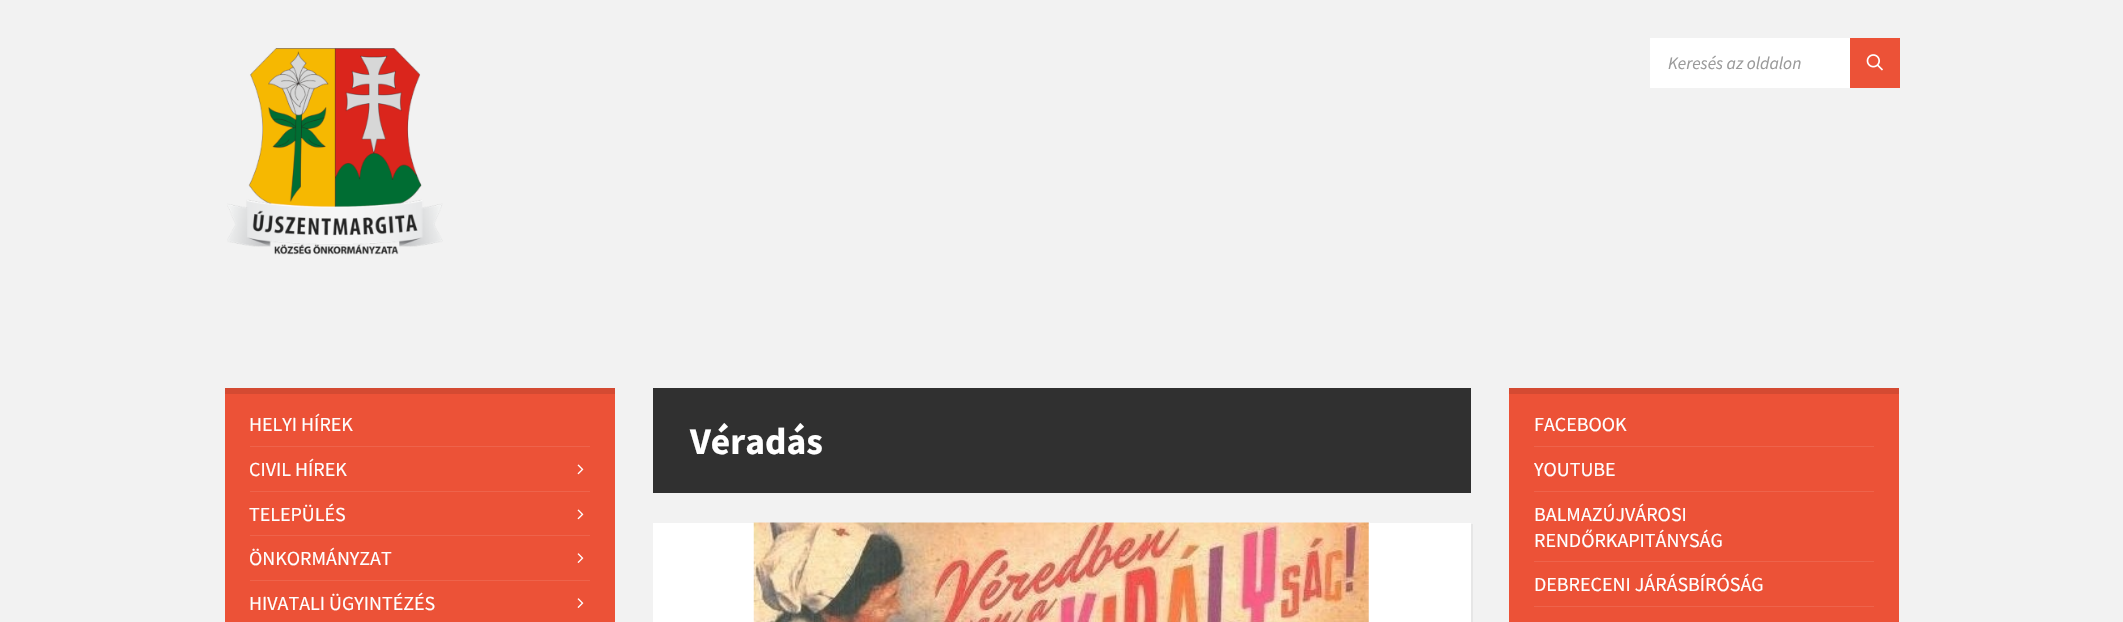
void draw(SkCanvas* canvas) {
	SkPaint paint;
	paint.setAntiAlias(true);
	auto svgPath = [&](const char* data, bool evenOdd = false) {
		SkPath result = *SkParsePath::FromSVGString(data);
		if (evenOdd) result.setFillType(SkPathFillType::kEvenOdd);
		return result;
	};
	canvas->clear(0xfff2f2f2);
	canvas->drawImageRect(SkImages::DeferredFromEncodedData(SkData::MakeFromFileName("img1.png")), SkRect::MakeXYWH(227, 48, 216, 207), SkSamplingOptions());
	paint.setColor(0xffffffff);
	canvas->drawRect(SkRect::MakeXYWH(1650, 38, 200, 50), paint);
	SkFont f1(fontMgr->matchFamilyStyle("Source Sans Pro", SkFontStyle::Italic()), 17.5);
	f1.setSubpixel(true);
	paint.setColor(0xff9a9a9a);
	canvas->drawString("Keresés az oldalon", 1668, 69, f1, paint);
	paint.setColor(0xffec5237);
	canvas->drawRect(SkRect::MakeXYWH(1850, 38, 50, 50), paint);
	canvas->drawImageRect(SkImages::DeferredFromEncodedData(SkData::MakeFromFileName("img2.png")), SkRect::MakeXYWH(1866, 54, 17, 17), SkSamplingOptions());
	canvas->drawRect(SkRect::MakeXYWH(225, 394, 390, 228), paint);
	paint.setColor(0xffd44a32);
	canvas->drawRect(SkRect::MakeXYWH(225, 388, 390, 6), paint);
	SkFont f2(fontMgr->matchFamilyStyle("Source Sans Pro", SkFontStyle::Normal()), 20);
	f2.setSubpixel(true);
	paint.setColor(0xffffffff);
	canvas->drawString("HELYI HÍREK", 249, 431, f2, paint);
	paint.setColor(0xffee634b);
	canvas->drawRect(SkRect::MakeXYWH(250, 446, 340, 1), paint);
	paint.setColor(0xffffffff);
	canvas->drawString("CIVIL HÍREK", 249, 476, f2, paint);
	canvas->drawImageRect(SkImages::DeferredFromEncodedData(SkData::MakeFromFileName("img3.png")), SkRect::MakeXYWH(577, 464, 7, 11), SkSamplingOptions());
	paint.setColor(0xffee634b);
	canvas->drawRect(SkRect::MakeXYWH(250, 491, 340, 1), paint);
	paint.setColor(0xffffffff);
	canvas->drawString("TELEPÜLÉS", 249, 521, f2, paint);
	canvas->drawImageRect(SkImages::DeferredFromEncodedData(SkData::MakeFromFileName("img3.png")), SkRect::MakeXYWH(577, 509, 7, 11), SkSamplingOptions());
	paint.setColor(0xffee634b);
	canvas->drawRect(SkRect::MakeXYWH(250, 535, 340, 1), paint);
	paint.setColor(0xffffffff);
	canvas->drawString("ÖNKORMÁNYZAT", 249, 565, f2, paint);
	canvas->drawImageRect(SkImages::DeferredFromEncodedData(SkData::MakeFromFileName("img4.png")), SkRect::MakeXYWH(577, 553, 7, 10), SkSamplingOptions());
	paint.setColor(0xffee634b);
	canvas->drawRect(SkRect::MakeXYWH(250, 580, 340, 1), paint);
	paint.setColor(0xffffffff);
	canvas->drawString("HIVATALI ÜGYINTÉZÉS", 249, 610, f2, paint);
	canvas->drawImageRect(SkImages::DeferredFromEncodedData(SkData::MakeFromFileName("img4.png")), SkRect::MakeXYWH(577, 598, 7, 10), SkSamplingOptions());
	paint.setColor(0xff303030);
	canvas->drawRect(SkRect::MakeXYWH(653, 388, 818, 105), paint);
	SkFont f3(fontMgr->matchFamilyStyle("Source Sans Pro", SkFontStyle::Bold()), 37.5);
	f3.setSubpixel(true);
	paint.setColor(0xffffffff);
	canvas->drawString("Véradás", 690, 454, f3, paint);
	paint.setColor(0xffe6e6e6);
	canvas->drawPath(svgPath("M654 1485V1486H1473V524H1471V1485Z"), paint);
	paint.setColor(0xffffffff);
	canvas->drawRect(SkRect::MakeXYWH(653, 523, 818, 99), paint);
	canvas->drawImageRect(SkImages::DeferredFromEncodedData(SkData::MakeFromFileName("img5.png")), SkRect::MakeXYWH(753, 522, 617, 100), SkSamplingOptions());
	paint.setColor(0xffec5237);
	canvas->drawRect(SkRect::MakeXYWH(1509, 394, 390, 228), paint);
	paint.setColor(0xffd44a32);
	canvas->drawRect(SkRect::MakeXYWH(1509, 388, 390, 6), paint);
	paint.setColor(0xffffffff);
	canvas->drawString("FACEBOOK", 1534, 431, f2, paint);
	paint.setColor(0xffee634b);
	canvas->drawRect(SkRect::MakeXYWH(1534, 446, 340, 1), paint);
	paint.setColor(0xffffffff);
	canvas->drawString("YOUTUBE", 1534, 476, f2, paint);
	paint.setColor(0xffee634b);
	canvas->drawRect(SkRect::MakeXYWH(1534, 491, 340, 1), paint);
	paint.setColor(0xffffffff);
	canvas->drawString("BALMAZÚJVÁROSI", 1534, 521, f2, paint);
	canvas->drawString("RENDŐRKAPITÁNYSÁG", 1534, 547, f2, paint);
	paint.setColor(0xffee634b);
	canvas->drawRect(SkRect::MakeXYWH(1534, 561, 340, 1), paint);
	paint.setColor(0xffffffff);
	canvas->drawString("DEBRECENI JÁRÁSBÍRÓSÁG", 1534, 591, f2, paint);
	paint.setColor(0xffee634b);
	canvas->drawRect(SkRect::MakeXYWH(1534, 606, 340, 1), paint);
}
